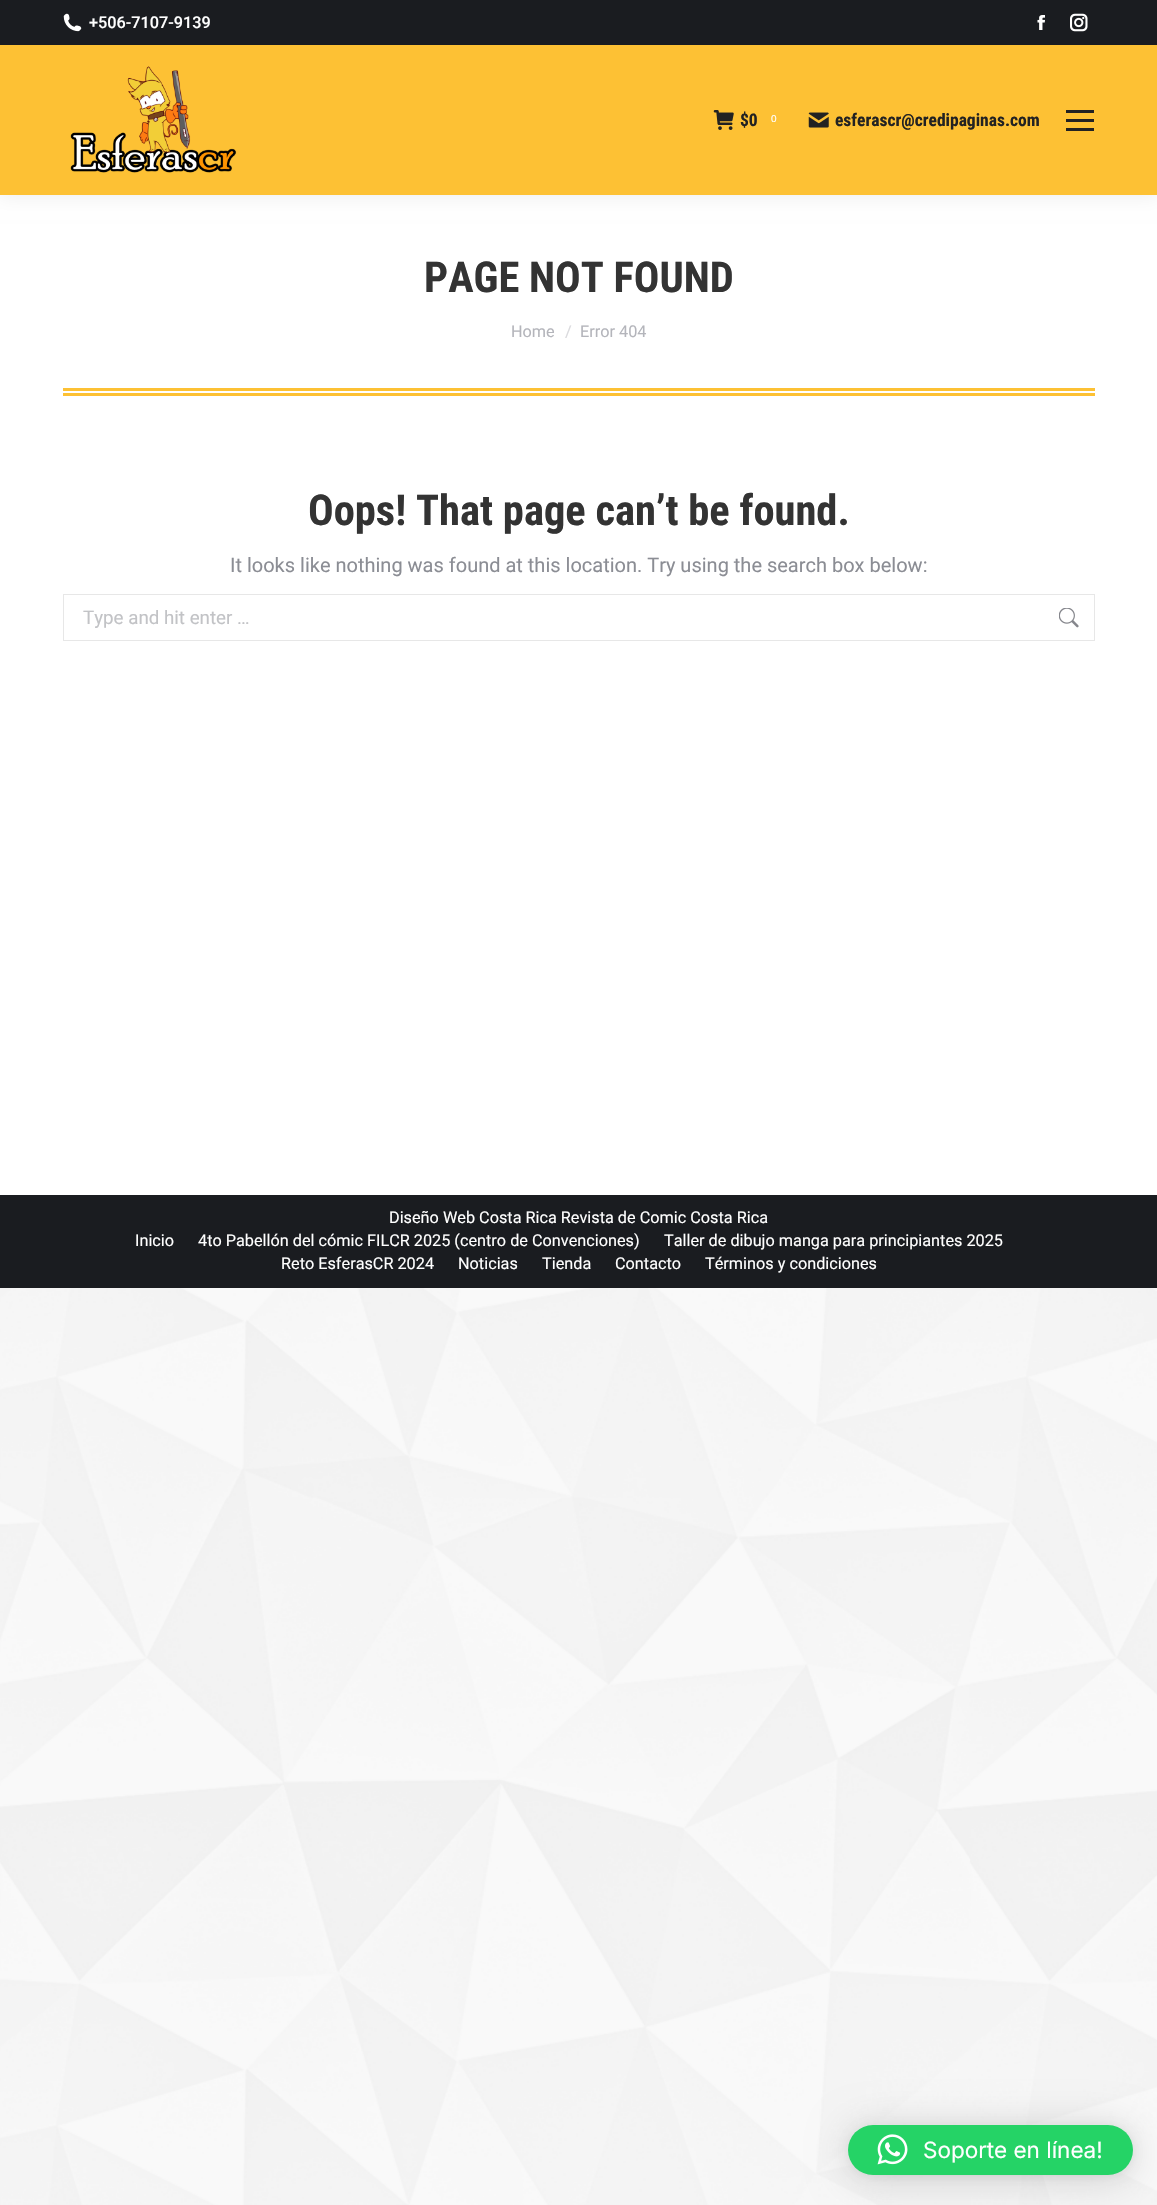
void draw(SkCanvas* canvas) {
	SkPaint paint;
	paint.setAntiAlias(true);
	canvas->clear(0xfff9f9f9);
	canvas->drawImageRect(SkImages::DeferredFromEncodedData(SkData::MakeFromFileName("img1.png")), SkRect::MakeXYWH(0, 1288, 1157, 917), SkSamplingOptions());
	paint.setColor(0xffffffff);
	canvas->drawRect(SkRect::MakeXYWH(0, 195, 1157, 1000), paint);
	paint.setColor(0x12000000);
	paint.setMaskFilter(SkMaskFilter::MakeBlur(kNormal_SkBlurStyle, 9.5));
	canvas->drawRect(SkRect::MakeXYWH(-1, -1, 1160, 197), paint);
	paint.setMaskFilter(nullptr);
	paint.setColor(0xfffdc134);
	canvas->drawRect(SkRect::MakeXYWH(0, 45, 1157, 150), paint);
	paint.setColor(0xff1a1c20);
	canvas->drawRect(SkRect::MakeXYWH(0, 0, 1157, 45), paint);
	canvas->drawImageRect(SkImages::DeferredFromEncodedData(SkData::MakeFromFileName("img2.png")), SkRect::MakeXYWH(63, 13, 19, 19), SkSamplingOptions());
	SkFont f1(fontMgr->matchFamilyStyle("Roboto", SkFontStyle(500, SkFontStyle::kNormal_Width, SkFontStyle::kUpright_Slant)), 16.25);
	f1.setSubpixel(true);
	paint.setColor(0xffffffff);
	canvas->drawString("+506-7107-9139", 89, 28, f1, paint);
	canvas->drawImageRect(SkImages::DeferredFromEncodedData(SkData::MakeFromFileName("img3.png")), SkRect::MakeXYWH(1037, 15, 8, 15), SkSamplingOptions());
	canvas->drawImageRect(SkImages::DeferredFromEncodedData(SkData::MakeFromFileName("img4.png")), SkRect::MakeXYWH(1070, 13, 18, 19), SkSamplingOptions());
	canvas->drawImageRect(SkImages::DeferredFromEncodedData(SkData::MakeFromFileName("img5.png")), SkRect::MakeXYWH(70, 66, 167, 107), SkSamplingOptions());
	canvas->drawImageRect(SkImages::DeferredFromEncodedData(SkData::MakeFromFileName("img6.png")), SkRect::MakeXYWH(713, 110, 21, 20), SkSamplingOptions());
	SkFont f2(fontMgr->matchFamilyStyle("Roboto Condensed", SkFontStyle::Bold()), 17.5);
	f2.setSubpixel(true);
	paint.setColor(0xff222222);
	canvas->drawString("$0", 740, 126, f2, paint);
	SkFont f3(fontMgr->matchFamilyStyle("Liberation Sans", SkFontStyle::Normal()), 10);
	f3.setSubpixel(true);
	paint.setColor(0xffffffff);
	canvas->drawString("0", 771, 122, f3, paint);
	canvas->drawImageRect(SkImages::DeferredFromEncodedData(SkData::MakeFromFileName("img7.png")), SkRect::MakeXYWH(808, 112, 21, 16), SkSamplingOptions());
	paint.setColor(0xff222222);
	canvas->drawString("esferascr@credipaginas.com", 835, 126, f2, paint);
	canvas->drawRect(SkRect::MakeXYWH(1066, 110, 28, 3), paint);
	canvas->drawRect(SkRect::MakeXYWH(1066, 119, 28, 3), paint);
	canvas->drawRect(SkRect::MakeXYWH(1066, 128, 28, 3), paint);
	SkFont f4(fontMgr->matchFamilyStyle("Roboto Condensed", SkFontStyle::Bold()), 42.5);
	f4.setSubpixel(true);
	paint.setColor(0xff333333);
	canvas->drawString("PAGE NOT FOUND", 424, 292, f4, paint);
	SkFont f5(fontMgr->matchFamilyStyle("Roboto", SkFontStyle::Normal()), 16.25);
	f5.setSubpixel(true);
	paint.setColor(0xffb4b5bb);
	canvas->drawString("Home", 511, 337, f5, paint);
	paint.setColor(0xffdadadd);
	canvas->drawString("/", 565, 337, f5, paint);
	paint.setColor(0xffb4b5bb);
	canvas->drawString("Error 404", 580, 337, f5, paint);
	paint.setColor(0xfffdc134);
	canvas->drawRect(SkRect::MakeXYWH(63, 388, 1032, 3), paint);
	canvas->drawRect(SkRect::MakeXYWH(63, 393, 1032, 3), paint);
	paint.setColor(0xff333333);
	canvas->drawString("Oops! That page can’t be found.", 308, 525, f4, paint);
	SkFont f6(fontMgr->matchFamilyStyle("Roboto", SkFontStyle::Normal()), 20);
	f6.setSubpixel(true);
	paint.setColor(0xff8b8d94);
	canvas->drawString("It looks like nothing was found at this location. Try using the search box below:", 230, 572, f6, paint);
	paint.setStroke(true);
	paint.setStrokeWidth(1);
	paint.setColor(0xffe7e7e7);
	canvas->drawRect(SkRect::MakeXYWH(63.5, 594.5, 1031, 46), paint);
	SkFont f7(fontMgr->matchFamilyStyle("Roboto", SkFontStyle::Normal()), 18.75);
	f7.setSubpixel(true);
	paint.setStroke(false);
	paint.setColor(0xffc2c3c6);
	canvas->drawString("Type and hit enter …", 83, 624, f7, paint);
	canvas->drawImageRect(SkImages::DeferredFromEncodedData(SkData::MakeFromFileName("img8.png")), SkRect::MakeXYWH(1059, 608, 20, 20), SkSamplingOptions());
	paint.setColor(0xff1a1c20);
	canvas->drawRect(SkRect::MakeXYWH(0, 1195, 1157, 93), paint);
	paint.setColor(0xffffffff);
	canvas->drawString("Diseño Web Costa Rica Revista de Comic Costa Rica", 389, 1223, f5, paint);
	canvas->drawString("Inicio", 135, 1246, f5, paint);
	canvas->drawString("4to Pabellón del cómic FILCR 2025 (centro de Convenciones)", 198, 1246, f5, paint);
	canvas->drawString("Taller de dibujo manga para principiantes 2025", 664, 1246, f5, paint);
	canvas->drawString("Reto EsferasCR 2024", 281, 1269, f5, paint);
	canvas->drawString("Noticias", 458, 1269, f5, paint);
	canvas->drawString("Tienda", 542, 1269, f5, paint);
	canvas->drawString("Contacto", 615, 1269, f5, paint);
	canvas->drawString("Términos y condiciones", 705, 1269, f5, paint);
	paint.setColor(0x29000000);
	paint.setMaskFilter(SkMaskFilter::MakeBlur(kNormal_SkBlurStyle, 20));
	canvas->drawRoundRect(SkRect::MakeXYWH(848, 2128, 285, 50), 25, 25, paint);
	paint.setMaskFilter(nullptr);
	paint.setColor(0x0f000000);
	paint.setMaskFilter(SkMaskFilter::MakeBlur(kNormal_SkBlurStyle, 4));
	canvas->drawRoundRect(SkRect::MakeXYWH(848, 2126, 285, 50), 25, 25, paint);
	paint.setMaskFilter(nullptr);
	paint.setColor(0xff25d366);
	canvas->drawRoundRect(SkRect::MakeXYWH(848, 2125, 285, 50), 25, 25, paint);
	canvas->drawImageRect(SkImages::DeferredFromEncodedData(SkData::MakeFromFileName("img9.png")), SkRect::MakeXYWH(877, 2134, 31, 31), SkSamplingOptions());
	SkFont f8(fontMgr->matchFamilyStyle("Inter", SkFontStyle::Normal()), 22.5);
	f8.setSubpixel(true);
	paint.setColor(0xffffffff);
	canvas->drawString("Soporte en línea!", 923, 2158, f8, paint);
}
